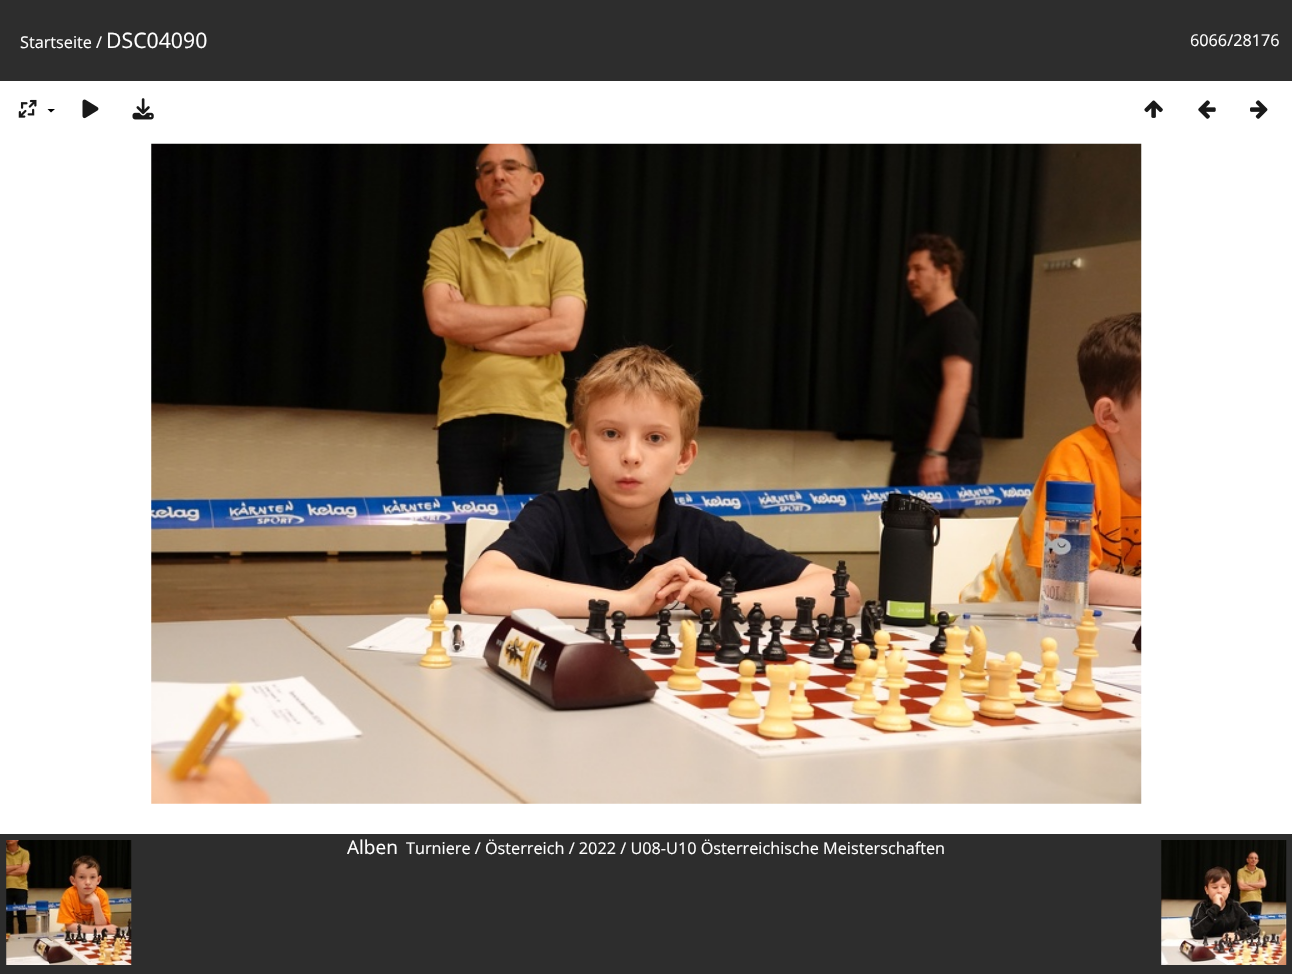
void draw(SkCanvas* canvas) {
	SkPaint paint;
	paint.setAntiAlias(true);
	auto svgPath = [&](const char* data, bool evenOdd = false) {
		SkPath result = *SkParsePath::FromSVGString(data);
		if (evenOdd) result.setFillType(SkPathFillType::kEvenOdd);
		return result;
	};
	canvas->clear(0xffffffff);
	paint.setColor(0xff2d2d2d);
	canvas->drawRect(SkRect::MakeXYWH(0, 0, 1292, 81), paint);
	SkFont f1(fontMgr->matchFamilyStyle("Open Sans", SkFontStyle::Normal()), 16.25);
	f1.setSubpixel(true);
	paint.setColor(0xffffffff);
	canvas->drawString("Startseite /", 20, 48, f1, paint);
	SkFont f2(fontMgr->matchFamilyStyle("Open Sans", SkFontStyle::Normal()), 21.25);
	f2.setSubpixel(true);
	canvas->drawString("DSC04090", 106, 48, f2, paint);
	canvas->drawString("6066/28176", 1190, 46, f1, paint);
	canvas->drawImageRect(SkImages::DeferredFromEncodedData(SkData::MakeFromFileName("img1.png")), SkRect::MakeXYWH(18, 99, 19, 19), SkSamplingOptions());
	paint.setColor(0xff000000);
	canvas->drawPath(svgPath("M47.5 109H55L51 112.5Z"), paint);
	canvas->drawImageRect(SkImages::DeferredFromEncodedData(SkData::MakeFromFileName("img2.png")), SkRect::MakeXYWH(82, 99, 17, 20), SkSamplingOptions());
	canvas->drawImageRect(SkImages::DeferredFromEncodedData(SkData::MakeFromFileName("img3.png")), SkRect::MakeXYWH(132, 98, 22, 22), SkSamplingOptions());
	canvas->drawImageRect(SkImages::DeferredFromEncodedData(SkData::MakeFromFileName("img4.png")), SkRect::MakeXYWH(1144, 100, 19, 18), SkSamplingOptions());
	canvas->drawImageRect(SkImages::DeferredFromEncodedData(SkData::MakeFromFileName("img5.png")), SkRect::MakeXYWH(1198, 100, 18, 19), SkSamplingOptions());
	canvas->drawImageRect(SkImages::DeferredFromEncodedData(SkData::MakeFromFileName("img6.png")), SkRect::MakeXYWH(1250, 100, 18, 19), SkSamplingOptions());
	canvas->drawImageRect(SkImages::DeferredFromEncodedData(SkData::MakeFromFileName("img7.png")), SkRect::MakeXYWH(151, 143, 991, 661), SkSamplingOptions());
	paint.setColor(0xff2d2d2d);
	canvas->drawRect(SkRect::MakeXYWH(0, 834, 1292, 140), paint);
	SkFont f3(fontMgr->matchFamilyStyle("Open Sans", SkFontStyle::Normal()), 19);
	f3.setSubpixel(true);
	paint.setColor(0xffffffff);
	canvas->drawString("Alben", 347, 854, f3, paint);
	canvas->drawString("Turniere / Österreich / 2022 / U08-U10 Österreichische Meisterschaften", 406, 854, f1, paint);
	canvas->drawImageRect(SkImages::DeferredFromEncodedData(SkData::MakeFromFileName("img8.png")), SkRect::MakeXYWH(6, 840, 126, 125), SkSamplingOptions());
	canvas->drawImageRect(SkImages::DeferredFromEncodedData(SkData::MakeFromFileName("img9.png")), SkRect::MakeXYWH(1161, 840, 126, 125), SkSamplingOptions());
}
